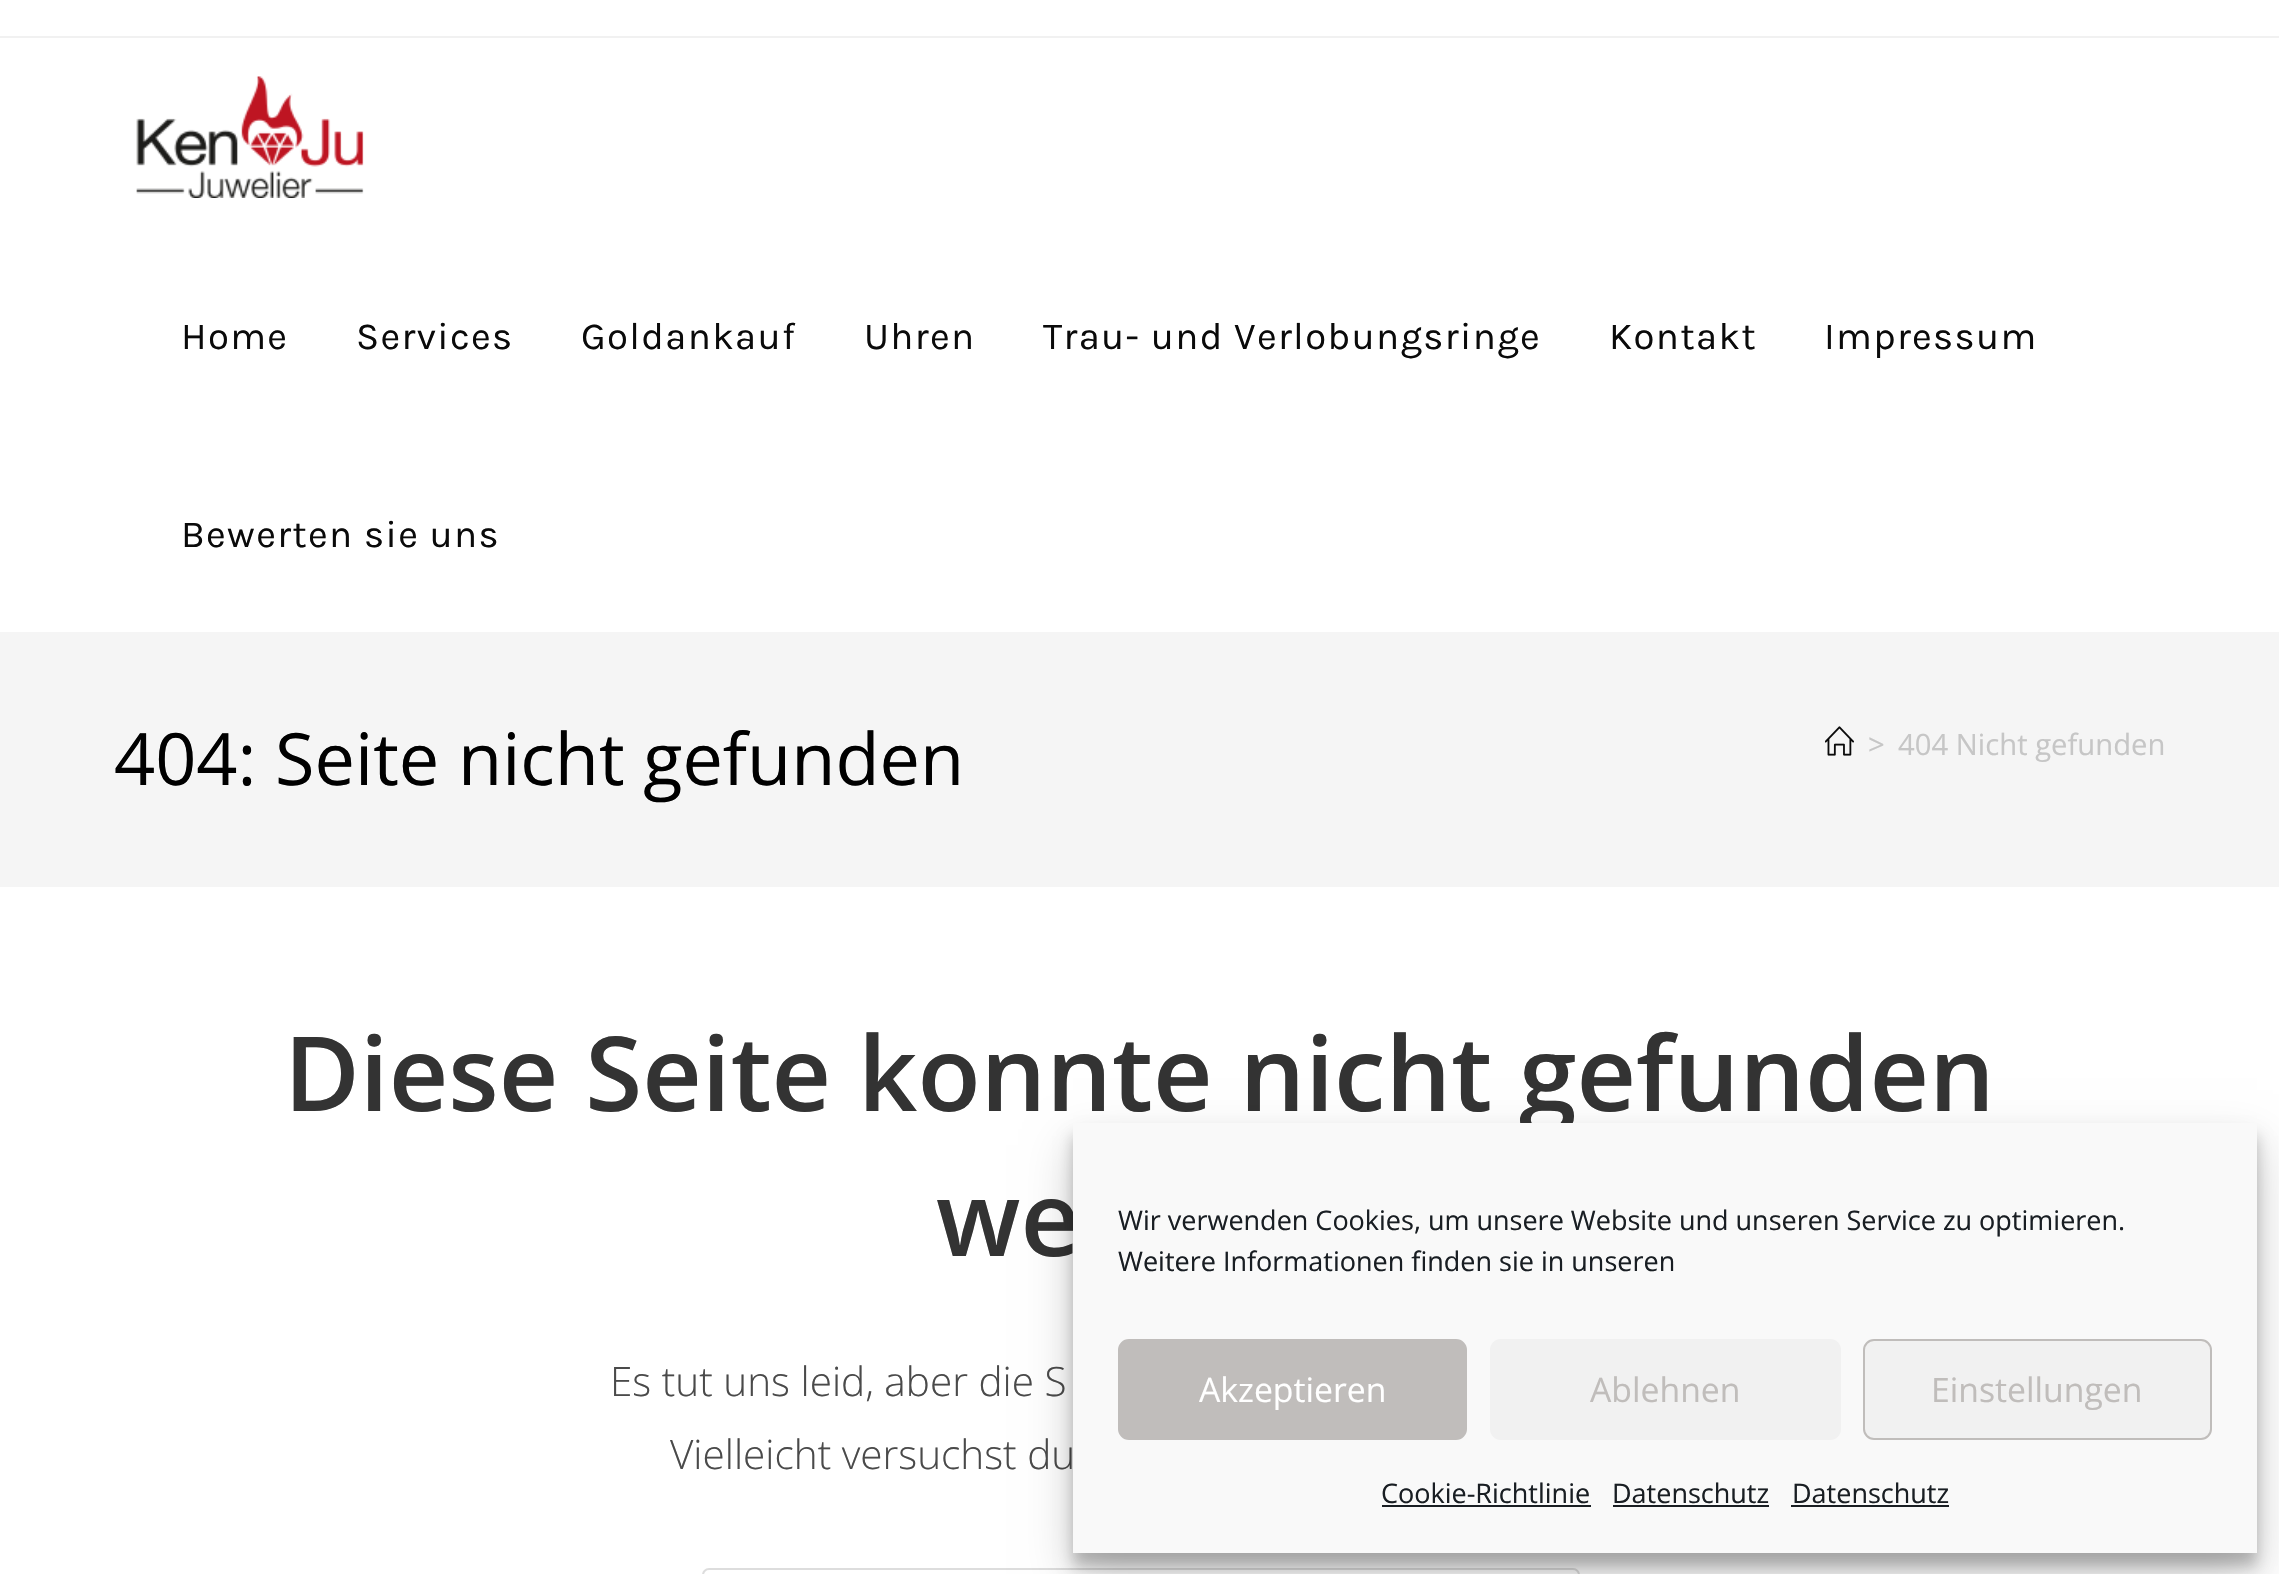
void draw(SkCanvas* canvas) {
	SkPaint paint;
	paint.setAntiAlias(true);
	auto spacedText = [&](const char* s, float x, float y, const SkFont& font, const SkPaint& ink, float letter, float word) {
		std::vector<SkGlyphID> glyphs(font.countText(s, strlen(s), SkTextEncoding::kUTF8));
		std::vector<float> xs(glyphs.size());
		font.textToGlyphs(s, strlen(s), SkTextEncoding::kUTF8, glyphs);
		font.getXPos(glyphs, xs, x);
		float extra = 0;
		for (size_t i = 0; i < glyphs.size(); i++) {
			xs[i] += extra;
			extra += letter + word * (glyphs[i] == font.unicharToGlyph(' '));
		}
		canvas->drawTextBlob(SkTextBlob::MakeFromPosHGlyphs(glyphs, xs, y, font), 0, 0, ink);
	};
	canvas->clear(0xffffffff);
	paint.setColor(0xfff1f1f1);
	canvas->drawRect(SkRect::MakeXYWH(0, 36, 2279, 2), paint);
	canvas->drawImageRect(SkImages::DeferredFromEncodedData(SkData::MakeFromFileName("img1.png")), SkRect::MakeXYWH(136, 76, 228, 122), SkSamplingOptions());
	SkFont f1(fontMgr->matchFamilyStyle("Karla", SkFontStyle::Normal()), 38.25);
	f1.setSubpixel(true);
	paint.setColor(0xff0a0a0a);
	spacedText("Home", 181, 349, f1, paint, 1.35, 0);
	spacedText("Services", 356, 349, f1, paint, 1.35, 0);
	spacedText("Goldankauf", 581, 349, f1, paint, 1.35, 0);
	spacedText("Uhren", 864, 349, f1, paint, 1.35, 0);
	spacedText("Trau- und Verlobungsringe", 1043, 349, f1, paint, 1.35, 0);
	spacedText("Kontakt", 1609, 349, f1, paint, 1.35, 0);
	spacedText("Impressum", 1824, 349, f1, paint, 1.35, 0);
	spacedText("Bewerten sie uns", 181, 547, f1, paint, 1.35, 0);
	paint.setColor(0xfff5f5f5);
	canvas->drawRect(SkRect::MakeXYWH(0, 632, 2279, 255), paint);
	SkFont f2(fontMgr->matchFamilyStyle("Open Sans", SkFontStyle::Normal()), 72);
	f2.setSubpixel(true);
	paint.setColor(0xff000000);
	canvas->drawString("404: Seite nicht gefunden", 114, 785, f2, paint);
	canvas->drawImageRect(SkImages::DeferredFromEncodedData(SkData::MakeFromFileName("img2.png")), SkRect::MakeXYWH(1825, 726, 29, 30), SkSamplingOptions());
	SkFont f3(fontMgr->matchFamilyStyle("Open Sans", SkFontStyle::Normal()), 29.25);
	f3.setSubpixel(true);
	paint.setColor(0xffc6c6c6);
	canvas->drawString(">", 1868, 755, f3, paint);
	canvas->drawString("404 Nicht gefunden", 1898, 755, f3, paint);
	SkFont f4(fontMgr->matchFamilyStyle("Open Sans", SkFontStyle(600, SkFontStyle::kNormal_Width, SkFontStyle::kUpright_Slant)), 103.5);
	f4.setSubpixel(true);
	paint.setColor(0xff333333);
	canvas->drawString("Diese Seite konnte nicht gefunden", 284, 1111, f4, paint);
	canvas->drawString("we", 936, 1256, f4, paint);
	SkFont f5(fontMgr->matchFamilyStyle("Open Sans", SkFontStyle(300, SkFontStyle::kNormal_Width, SkFontStyle::kUpright_Slant)), 40.5);
	f5.setSubpixel(true);
	paint.setColor(0xff4a4a4a);
	canvas->drawString("Es tut uns leid, aber die S", 610, 1396, f5, paint);
	canvas->drawString("Vielleicht versuchst du", 670, 1469, f5, paint);
	paint.setStroke(true);
	paint.setStrokeWidth(2);
	paint.setColor(0xffdddddd);
	canvas->drawRoundRect(SkRect::MakeXYWH(703, 1569, 876, 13), 6, 6, paint);
	paint.setStroke(false);
	paint.setColor(0x3b000000);
	paint.setMaskFilter(SkMaskFilter::MakeBlur(kNormal_SkBlurStyle, 7));
	canvas->drawRect(SkRect::MakeXYWH(1073, 1136, 1184, 430), paint);
	paint.setMaskFilter(nullptr);
	paint.setColor(0x30000000);
	paint.setMaskFilter(SkMaskFilter::MakeBlur(kNormal_SkBlurStyle, 22.5));
	canvas->drawRect(SkRect::MakeXYWH(1073, 1145, 1184, 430), paint);
	paint.setMaskFilter(nullptr);
	paint.setColor(0xfff9f9f9);
	canvas->drawRect(SkRect::MakeXYWH(1073, 1123, 1184, 430), paint);
	SkFont f6(fontMgr->matchFamilyStyle("Open Sans", SkFontStyle::Normal()), 27);
	f6.setSubpixel(true);
	paint.setColor(0xff191e23);
	canvas->drawString("Wir verwenden Cookies, um unsere Website und unseren Service zu optimieren.", 1118, 1230, f6, paint);
	canvas->drawString("Weitere Informationen finden sie in unseren", 1118, 1271, f6, paint);
	paint.setColor(0xffc0bdbb);
	canvas->drawRoundRect(SkRect::MakeXYWH(1119, 1340, 347, 99), 10, 10, paint);
	paint.setStroke(true);
	canvas->drawRoundRect(SkRect::MakeXYWH(1119, 1340, 347, 99), 10, 10, paint);
	SkFont f7(fontMgr->matchFamilyStyle("Open Sans", SkFontStyle::Normal()), 33.75);
	f7.setSubpixel(true);
	paint.setStroke(false);
	paint.setColor(0xffffffff);
	canvas->drawString("Akzeptieren", 1199, 1402, f7, paint);
	paint.setColor(0xfff1f1f1);
	canvas->drawRoundRect(SkRect::MakeXYWH(1490, 1339, 351, 101), 11, 11, paint);
	paint.setColor(0xffc0bdbb);
	canvas->drawString("Ablehnen", 1590, 1402, f7, paint);
	paint.setColor(0xfff1f1f1);
	canvas->drawRoundRect(SkRect::MakeXYWH(1864, 1340, 347, 99), 10, 10, paint);
	paint.setStroke(true);
	paint.setColor(0xffc0bdbb);
	canvas->drawRoundRect(SkRect::MakeXYWH(1864, 1340, 347, 99), 10, 10, paint);
	paint.setStroke(false);
	canvas->drawString("Einstellungen", 1931, 1402, f7, paint);
	paint.setColor(0xff191e23);
	canvas->drawString("Cookie-Richtlinie", 1381, 1503, f6, paint);
	canvas->drawRect(SkRect::MakeXYWH(1382, 1505, 209, 2), paint);
	canvas->drawString("Datenschutz", 1612, 1503, f6, paint);
	canvas->drawRect(SkRect::MakeXYWH(1613, 1505, 156, 2), paint);
	canvas->drawString("Datenschutz", 1792, 1503, f6, paint);
	canvas->drawRect(SkRect::MakeXYWH(1791, 1505, 158, 2), paint);
}
